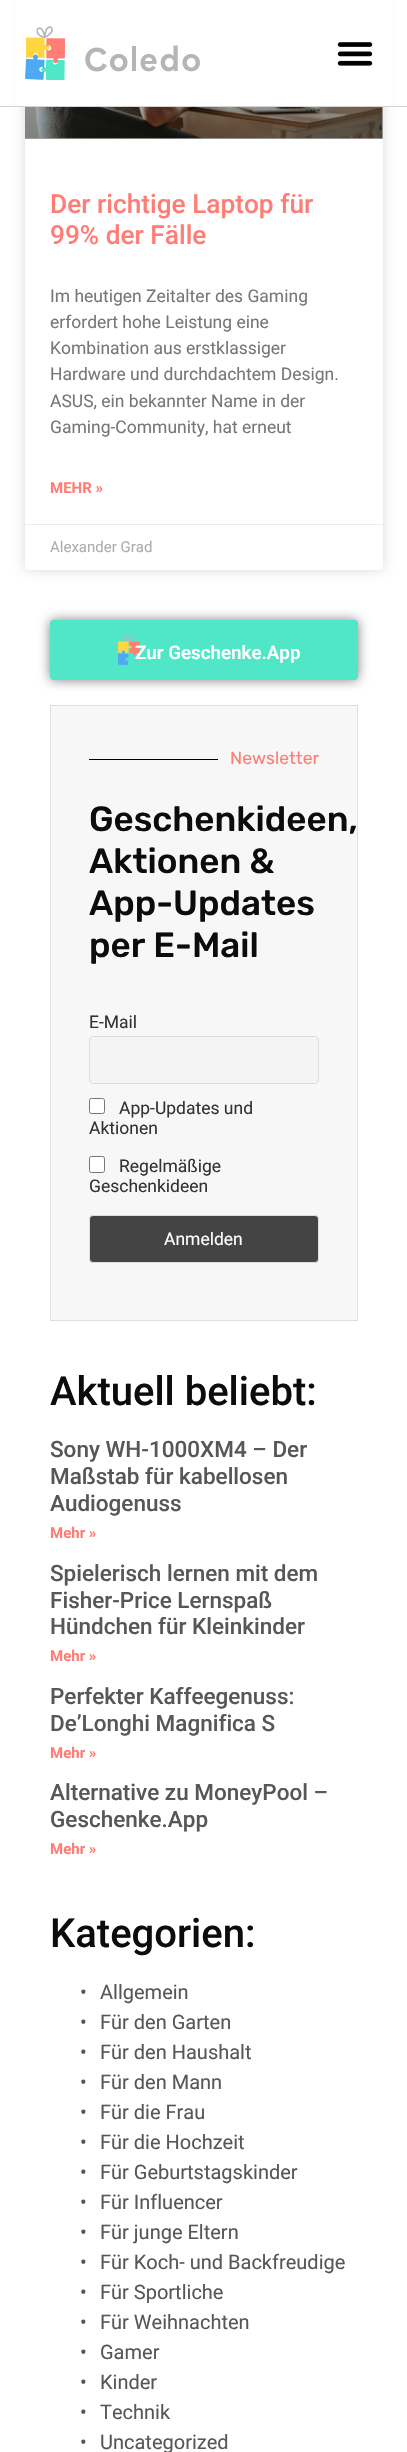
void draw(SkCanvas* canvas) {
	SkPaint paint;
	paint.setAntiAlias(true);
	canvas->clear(0xffffffff);
	paint.setColor(0x26000000);
	paint.setMaskFilter(SkMaskFilter::MakeBlur(kNormal_SkBlurStyle, 6));
	canvas->drawRoundRect(SkRect::MakeXYWH(25, -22, 358, 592), 4, 4, paint);
	paint.setMaskFilter(nullptr);
	paint.setColor(0xffffffff);
	canvas->drawRoundRect(SkRect::MakeXYWH(25, -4, 358, 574), 4, 4, paint);
	canvas->drawRect(SkRect::MakeXYWH(16, 0, 376, 106), paint);
	paint.setColor(0xffd3d3d3);
	canvas->drawRect(SkRect::MakeXYWH(0, 106, 407, 1), paint);
	canvas->drawImageRect(SkImages::DeferredFromEncodedData(SkData::MakeFromFileName("img1.png")), SkRect::MakeXYWH(25, 26, 175, 54), SkSamplingOptions());
	canvas->drawImageRect(SkImages::DeferredFromEncodedData(SkData::MakeFromFileName("img2.png")), SkRect::MakeXYWH(337, 42, 36, 24), SkSamplingOptions());
	canvas->drawImageRect(SkImages::DeferredFromEncodedData(SkData::MakeFromFileName("img3.png")), SkRect::MakeXYWH(25, 107, 358, 32), SkSamplingOptions());
	{
		const SkColor colors[] = {0x59000000, 0x00000000};
		const float stops[] = {0, 0.75};
		const SkPoint ends[] = {{204, 139}, {204, -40}};
		paint.setShader(SkGradientShader::MakeLinear(ends, colors, stops, 2, SkTileMode::kClamp));
		paint.setAlpha(255);
	}
	canvas->drawRect(SkRect::MakeXYWH(25, 107, 358, 32), paint);
	SkFont f1(fontMgr->matchFamilyStyle("Roboto", SkFontStyle(500, SkFontStyle::kNormal_Width, SkFontStyle::kUpright_Slant)), 26.25);
	f1.setSubpixel(true);
	paint.setShader(nullptr);
	paint.setColor(0xffff7d74);
	canvas->drawString("Der richtige Laptop für", 50, 213, f1, paint);
	canvas->drawString("99% der Fälle", 50, 244, f1, paint);
	SkFont f2(fontMgr->matchFamilyStyle("Roboto", SkFontStyle::Normal()), 17.5);
	f2.setSubpixel(true);
	paint.setColor(0xff777777);
	canvas->drawString("Im heutigen Zeitalter des Gaming", 50, 302, f2, paint);
	canvas->drawString("erfordert hohe Leistung eine", 50, 328, f2, paint);
	canvas->drawString("Kombination aus erstklassiger", 50, 354, f2, paint);
	canvas->drawString("Hardware und durchdachtem Design.", 50, 380, f2, paint);
	canvas->drawString("ASUS, ein bekannter Name in der", 50, 407, f2, paint);
	canvas->drawString("Gaming-Community, hat erneut", 50, 433, f2, paint);
	SkFont f3(fontMgr->matchFamilyStyle("Roboto", SkFontStyle::Bold()), 15);
	f3.setSubpixel(true);
	paint.setColor(0xffff7d74);
	canvas->drawString("MEHR »", 50, 493, f3, paint);
	paint.setColor(0xffeaeaea);
	canvas->drawRect(SkRect::MakeXYWH(25, 524, 358, 1), paint);
	SkFont f4(fontMgr->matchFamilyStyle("Roboto", SkFontStyle::Normal()), 15);
	f4.setSubpixel(true);
	paint.setColor(0xffadadad);
	canvas->drawString("Alexander Grad", 50, 552, f4, paint);
	paint.setColor(0x80000000);
	paint.setMaskFilter(SkMaskFilter::MakeBlur(kNormal_SkBlurStyle, 6));
	canvas->drawRoundRect(SkRect::MakeXYWH(50, 620, 308, 60), 4, 4, paint);
	paint.setMaskFilter(nullptr);
	paint.setColor(0xff50e6c8);
	canvas->drawRoundRect(SkRect::MakeXYWH(50, 620, 308, 60), 4, 4, paint);
	canvas->drawImageRect(SkImages::DeferredFromEncodedData(SkData::MakeFromFileName("img4.png")), SkRect::MakeXYWH(118, 635, 22, 30), SkSamplingOptions());
	SkFont f5(fontMgr->matchFamilyStyle("Roboto", SkFontStyle(600, SkFontStyle::kNormal_Width, SkFontStyle::kUpright_Slant)), 18.75);
	f5.setSubpixel(true);
	paint.setColor(0xffffffff);
	canvas->drawString("Zur Geschenke.App", 135, 659, f5, paint);
	paint.setColor(0xfff7f7f7);
	canvas->drawRect(SkRect::MakeXYWH(50.5, 705.5, 307, 615), paint);
	paint.setStroke(true);
	paint.setStrokeWidth(1);
	paint.setColor(0xffdfdfdf);
	canvas->drawRect(SkRect::MakeXYWH(50.5, 705.5, 307, 615), paint);
	paint.setStroke(false);
	paint.setColor(0xff000000);
	canvas->drawRect(SkRect::MakeXYWH(89, 759, 129, 1), paint);
	SkFont f6(fontMgr->matchFamilyStyle("Rubik", SkFontStyle::Normal()), 17.5);
	f6.setSubpixel(true);
	paint.setColor(0xffff7d74);
	canvas->drawString("Newsletter", 230, 764, f6, paint);
	SkFont f7(fontMgr->matchFamilyStyle("Rubik", SkFontStyle(500, SkFontStyle::kNormal_Width, SkFontStyle::kUpright_Slant)), 35);
	f7.setSubpixel(true);
	paint.setColor(0xff0c0c0c);
	canvas->drawString("Geschenkideen,", 89, 831, f7, paint);
	canvas->drawString("Aktionen &", 89, 873, f7, paint);
	canvas->drawString("App-Updates", 89, 915, f7, paint);
	canvas->drawString("per E-Mail", 89, 957, f7, paint);
	paint.setColor(0xff333333);
	canvas->drawString("E-Mail", 89, 1028, f2, paint);
	paint.setColor(0xfff4f4f4);
	canvas->drawRoundRect(SkRect::MakeXYWH(89.5, 1036.5, 229, 47), 3.5, 3.5, paint);
	paint.setStroke(true);
	paint.setColor(0xffdddddd);
	canvas->drawRoundRect(SkRect::MakeXYWH(89.5, 1036.5, 229, 47), 3.5, 3.5, paint);
	paint.setStroke(false);
	paint.setColor(0xffffffff);
	canvas->drawRoundRect(SkRect::MakeXYWH(89.5, 1098.5, 15, 15), 2, 2, paint);
	paint.setStroke(true);
	paint.setColor(0xff767676);
	canvas->drawRoundRect(SkRect::MakeXYWH(89.5, 1098.5, 15, 15), 2, 2, paint);
	paint.setStroke(false);
	paint.setColor(0xff333333);
	canvas->drawString("App-Updates und", 119, 1114, f2, paint);
	canvas->drawString("Aktionen", 89, 1134, f2, paint);
	paint.setColor(0xffffffff);
	canvas->drawRoundRect(SkRect::MakeXYWH(89.5, 1156.5, 15, 16), 2, 2, paint);
	paint.setStroke(true);
	paint.setColor(0xff767676);
	canvas->drawRoundRect(SkRect::MakeXYWH(89.5, 1156.5, 15, 16), 2, 2, paint);
	paint.setStroke(false);
	paint.setColor(0xff333333);
	canvas->drawString("Regelmäßige", 119, 1172, f2, paint);
	canvas->drawString("Geschenkideen", 89, 1192, f2, paint);
	paint.setColor(0xff444444);
	canvas->drawRoundRect(SkRect::MakeXYWH(89.5, 1215.5, 229, 47), 3.5, 3.5, paint);
	paint.setStroke(true);
	paint.setColor(0xffdddddd);
	canvas->drawRoundRect(SkRect::MakeXYWH(89.5, 1215.5, 229, 47), 3.5, 3.5, paint);
	paint.setStroke(false);
	paint.setColor(0xffffffff);
	canvas->drawString("Anmelden", 164, 1245, f2, paint);
	SkFont f8(fontMgr->matchFamilyStyle("Roboto", SkFontStyle(500, SkFontStyle::kNormal_Width, SkFontStyle::kUpright_Slant)), 40);
	f8.setSubpixel(true);
	paint.setColor(0xff0c0c0c);
	canvas->drawString("Aktuell beliebt:", 50, 1405, f8, paint);
	SkFont f9(fontMgr->matchFamilyStyle("Roboto", SkFontStyle(500, SkFontStyle::kNormal_Width, SkFontStyle::kUpright_Slant)), 22.5);
	f9.setSubpixel(true);
	paint.setColor(0xff575757);
	canvas->drawString("Sony WH-1000XM4 – Der", 50, 1457, f9, paint);
	canvas->drawString("Maßstab für kabellosen", 50, 1484, f9, paint);
	canvas->drawString("Audiogenuss", 50, 1511, f9, paint);
	paint.setColor(0xffff7d74);
	canvas->drawString("Mehr »", 50, 1538, f3, paint);
	paint.setColor(0xff575757);
	canvas->drawString("Spielerisch lernen mit dem", 50, 1581, f9, paint);
	canvas->drawString("Fisher-Price Lernspaß", 50, 1608, f9, paint);
	canvas->drawString("Hündchen für Kleinkinder", 50, 1634, f9, paint);
	paint.setColor(0xffff7d74);
	canvas->drawString("Mehr »", 50, 1661, f3, paint);
	paint.setColor(0xff575757);
	canvas->drawString("Perfekter Kaffeegenuss:", 50, 1704, f9, paint);
	canvas->drawString("De’Longhi Magnifica S", 50, 1731, f9, paint);
	paint.setColor(0xffff7d74);
	canvas->drawString("Mehr »", 50, 1758, f3, paint);
	paint.setColor(0xff575757);
	canvas->drawString("Alternative zu MoneyPool –", 50, 1800, f9, paint);
	canvas->drawString("Geschenke.App", 50, 1827, f9, paint);
	paint.setColor(0xffff7d74);
	canvas->drawString("Mehr »", 50, 1854, f3, paint);
	paint.setColor(0xff0c0c0c);
	canvas->drawString("Kategorien:", 50, 1947, f8, paint);
	SkFont f10(fontMgr->matchFamilyStyle("Roboto", SkFontStyle::Normal()), 20);
	f10.setSubpixel(true);
	paint.setColor(0xff575757);
	canvas->drawString("•", 80, 1999, f10, paint);
	canvas->drawString("Allgemein", 100, 1999, f10, paint);
	canvas->drawString("•", 80, 2029, f10, paint);
	canvas->drawString("Für den Garten", 100, 2029, f10, paint);
	canvas->drawString("•", 80, 2059, f10, paint);
	canvas->drawString("Für den Haushalt", 100, 2059, f10, paint);
	canvas->drawString("•", 80, 2089, f10, paint);
	canvas->drawString("Für den Mann", 100, 2089, f10, paint);
	canvas->drawString("•", 80, 2119, f10, paint);
	canvas->drawString("Für die Frau", 100, 2119, f10, paint);
	canvas->drawString("•", 80, 2149, f10, paint);
	canvas->drawString("Für die Hochzeit", 100, 2149, f10, paint);
	canvas->drawString("•", 80, 2179, f10, paint);
	canvas->drawString("Für Geburtstagskinder", 100, 2179, f10, paint);
	canvas->drawString("•", 80, 2209, f10, paint);
	canvas->drawString("Für Influencer", 100, 2209, f10, paint);
	canvas->drawString("•", 80, 2239, f10, paint);
	canvas->drawString("Für junge Eltern", 100, 2239, f10, paint);
	canvas->drawString("•", 80, 2269, f10, paint);
	canvas->drawString("Für Koch- und Backfreudige", 100, 2269, f10, paint);
	canvas->drawString("•", 80, 2299, f10, paint);
	canvas->drawString("Für Sportliche", 100, 2299, f10, paint);
	canvas->drawString("•", 80, 2329, f10, paint);
	canvas->drawString("Für Weihnachten", 100, 2329, f10, paint);
	canvas->drawString("•", 80, 2359, f10, paint);
	canvas->drawString("Gamer", 100, 2359, f10, paint);
	canvas->drawString("•", 80, 2389, f10, paint);
	canvas->drawString("Kinder", 100, 2389, f10, paint);
	canvas->drawString("•", 80, 2419, f10, paint);
	canvas->drawString("Technik", 100, 2419, f10, paint);
	canvas->drawString("•", 80, 2449, f10, paint);
	canvas->drawString("Uncategorized", 100, 2449, f10, paint);
}
